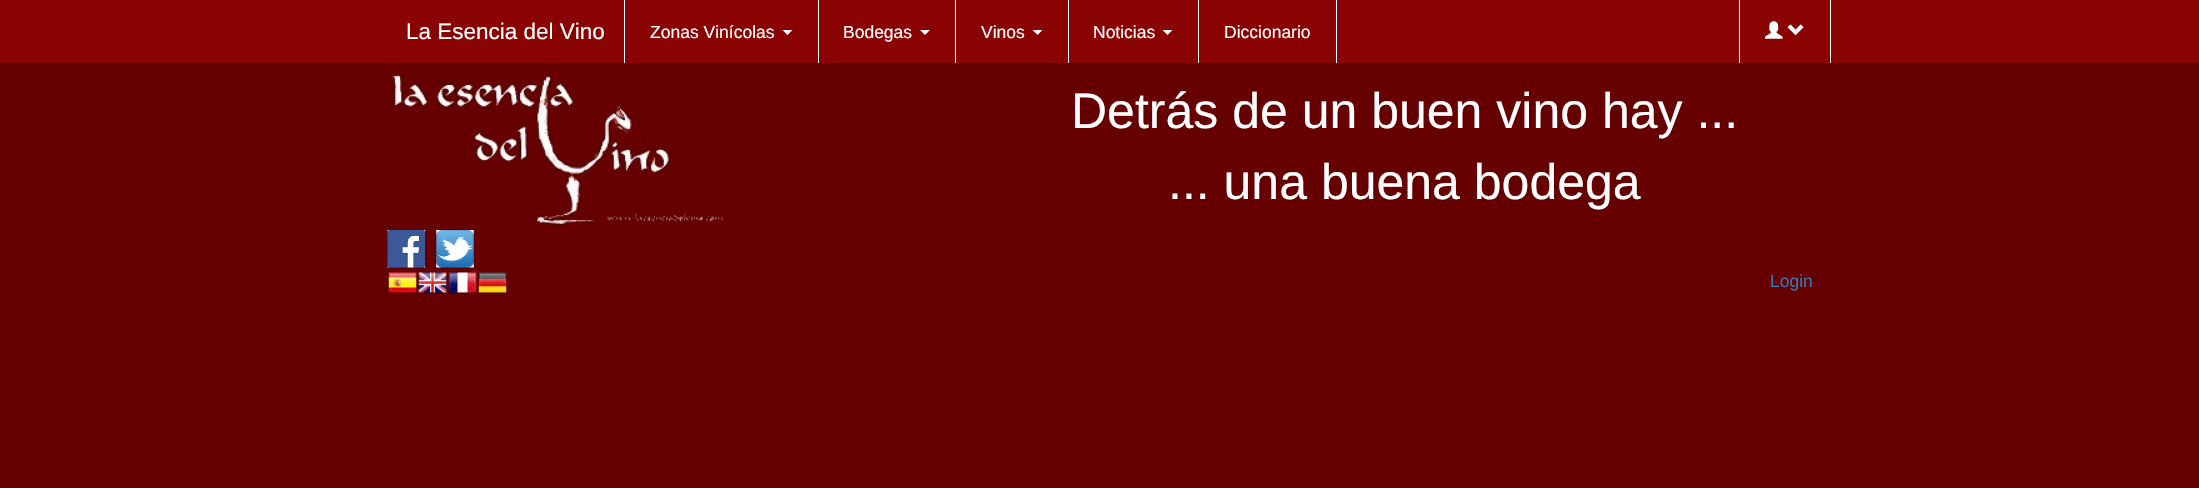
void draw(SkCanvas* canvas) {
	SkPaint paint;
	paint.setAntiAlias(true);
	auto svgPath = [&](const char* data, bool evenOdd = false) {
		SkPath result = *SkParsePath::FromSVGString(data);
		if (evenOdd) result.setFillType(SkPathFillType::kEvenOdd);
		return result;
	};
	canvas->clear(0xff660000);
	paint.setColor(0xff890303);
	canvas->drawRect(SkRect::MakeXYWH(0, 0, 2199, 63), paint);
	SkFont f1(fontMgr->matchFamilyStyle("Liberation Sans", SkFontStyle::Normal()), 22.5);
	f1.setSubpixel(true);
	paint.setColor(0xffffffff);
	canvas->drawString("La Esencia del Vino", 406, 39, f1, paint);
	canvas->drawRect(SkRect::MakeXYWH(624, 0, 1, 63), paint);
	SkFont f2(fontMgr->matchFamilyStyle("Liberation Sans", SkFontStyle::Normal()), 17.5);
	f2.setSubpixel(true);
	canvas->drawString("Zonas Vinícolas", 650, 38, f2, paint);
	canvas->drawPath(svgPath("M782.5 30H792.5L787.5 35Z"), paint);
	canvas->drawRect(SkRect::MakeXYWH(818, 0, 1, 63), paint);
	canvas->drawString("Bodegas", 843, 38, f2, paint);
	canvas->drawPath(svgPath("M920 30H930L925 35Z"), paint);
	canvas->drawRect(SkRect::MakeXYWH(955, 0, 1, 63), paint);
	canvas->drawString("Vinos", 981, 38, f2, paint);
	canvas->drawPath(svgPath("M1032.5 30H1042.5L1037.5 35Z"), paint);
	canvas->drawRect(SkRect::MakeXYWH(1068, 0, 1, 63), paint);
	canvas->drawString("Noticias", 1093, 38, f2, paint);
	canvas->drawPath(svgPath("M1162.5 30H1172.5L1167.5 35Z"), paint);
	canvas->drawRect(SkRect::MakeXYWH(1336, 0, 1, 63), paint);
	canvas->drawRect(SkRect::MakeXYWH(1198, 0, 1, 63), paint);
	canvas->drawString("Diccionario", 1224, 38, f2, paint);
	canvas->drawRect(SkRect::MakeXYWH(1830, 0, 1, 63), paint);
	canvas->drawRect(SkRect::MakeXYWH(1739, 0, 1, 63), paint);
	canvas->drawImageRect(SkImages::DeferredFromEncodedData(SkData::MakeFromFileName("img1.png")), SkRect::MakeXYWH(1765, 21, 18, 18), SkSamplingOptions());
	canvas->drawImageRect(SkImages::DeferredFromEncodedData(SkData::MakeFromFileName("img2.png")), SkRect::MakeXYWH(1787, 24, 17, 12), SkSamplingOptions());
	canvas->drawImageRect(SkImages::DeferredFromEncodedData(SkData::MakeFromFileName("img3.png")), SkRect::MakeXYWH(388, 75, 337, 151), SkSamplingOptions());
	SkFont f3(fontMgr->matchFamilyStyle("Liberation Sans", SkFontStyle::Normal()), 50);
	f3.setSubpixel(true);
	canvas->drawString("Detrás de un buen vino hay ...", 1071, 128, f3, paint);
	canvas->drawString("... una buena bodega", 1168, 199, f3, paint);
	canvas->drawImageRect(SkImages::DeferredFromEncodedData(SkData::MakeFromFileName("img4.png")), SkRect::MakeXYWH(387, 230, 38, 38), SkSamplingOptions());
	canvas->drawImageRect(SkImages::DeferredFromEncodedData(SkData::MakeFromFileName("img5.png")), SkRect::MakeXYWH(436, 230, 38, 38), SkSamplingOptions());
	canvas->drawImageRect(SkImages::DeferredFromEncodedData(SkData::MakeFromFileName("img6.png")), SkRect::MakeXYWH(387, 271, 31, 24), SkSamplingOptions());
	canvas->drawImageRect(SkImages::DeferredFromEncodedData(SkData::MakeFromFileName("img7.png")), SkRect::MakeXYWH(417, 271, 31, 24), SkSamplingOptions());
	canvas->drawImageRect(SkImages::DeferredFromEncodedData(SkData::MakeFromFileName("img8.png")), SkRect::MakeXYWH(447, 271, 31, 24), SkSamplingOptions());
	canvas->drawImageRect(SkImages::DeferredFromEncodedData(SkData::MakeFromFileName("img9.png")), SkRect::MakeXYWH(477, 271, 31, 24), SkSamplingOptions());
	paint.setColor(0xff337ab7);
	canvas->drawString("Login", 1770, 287, f2, paint);
}
